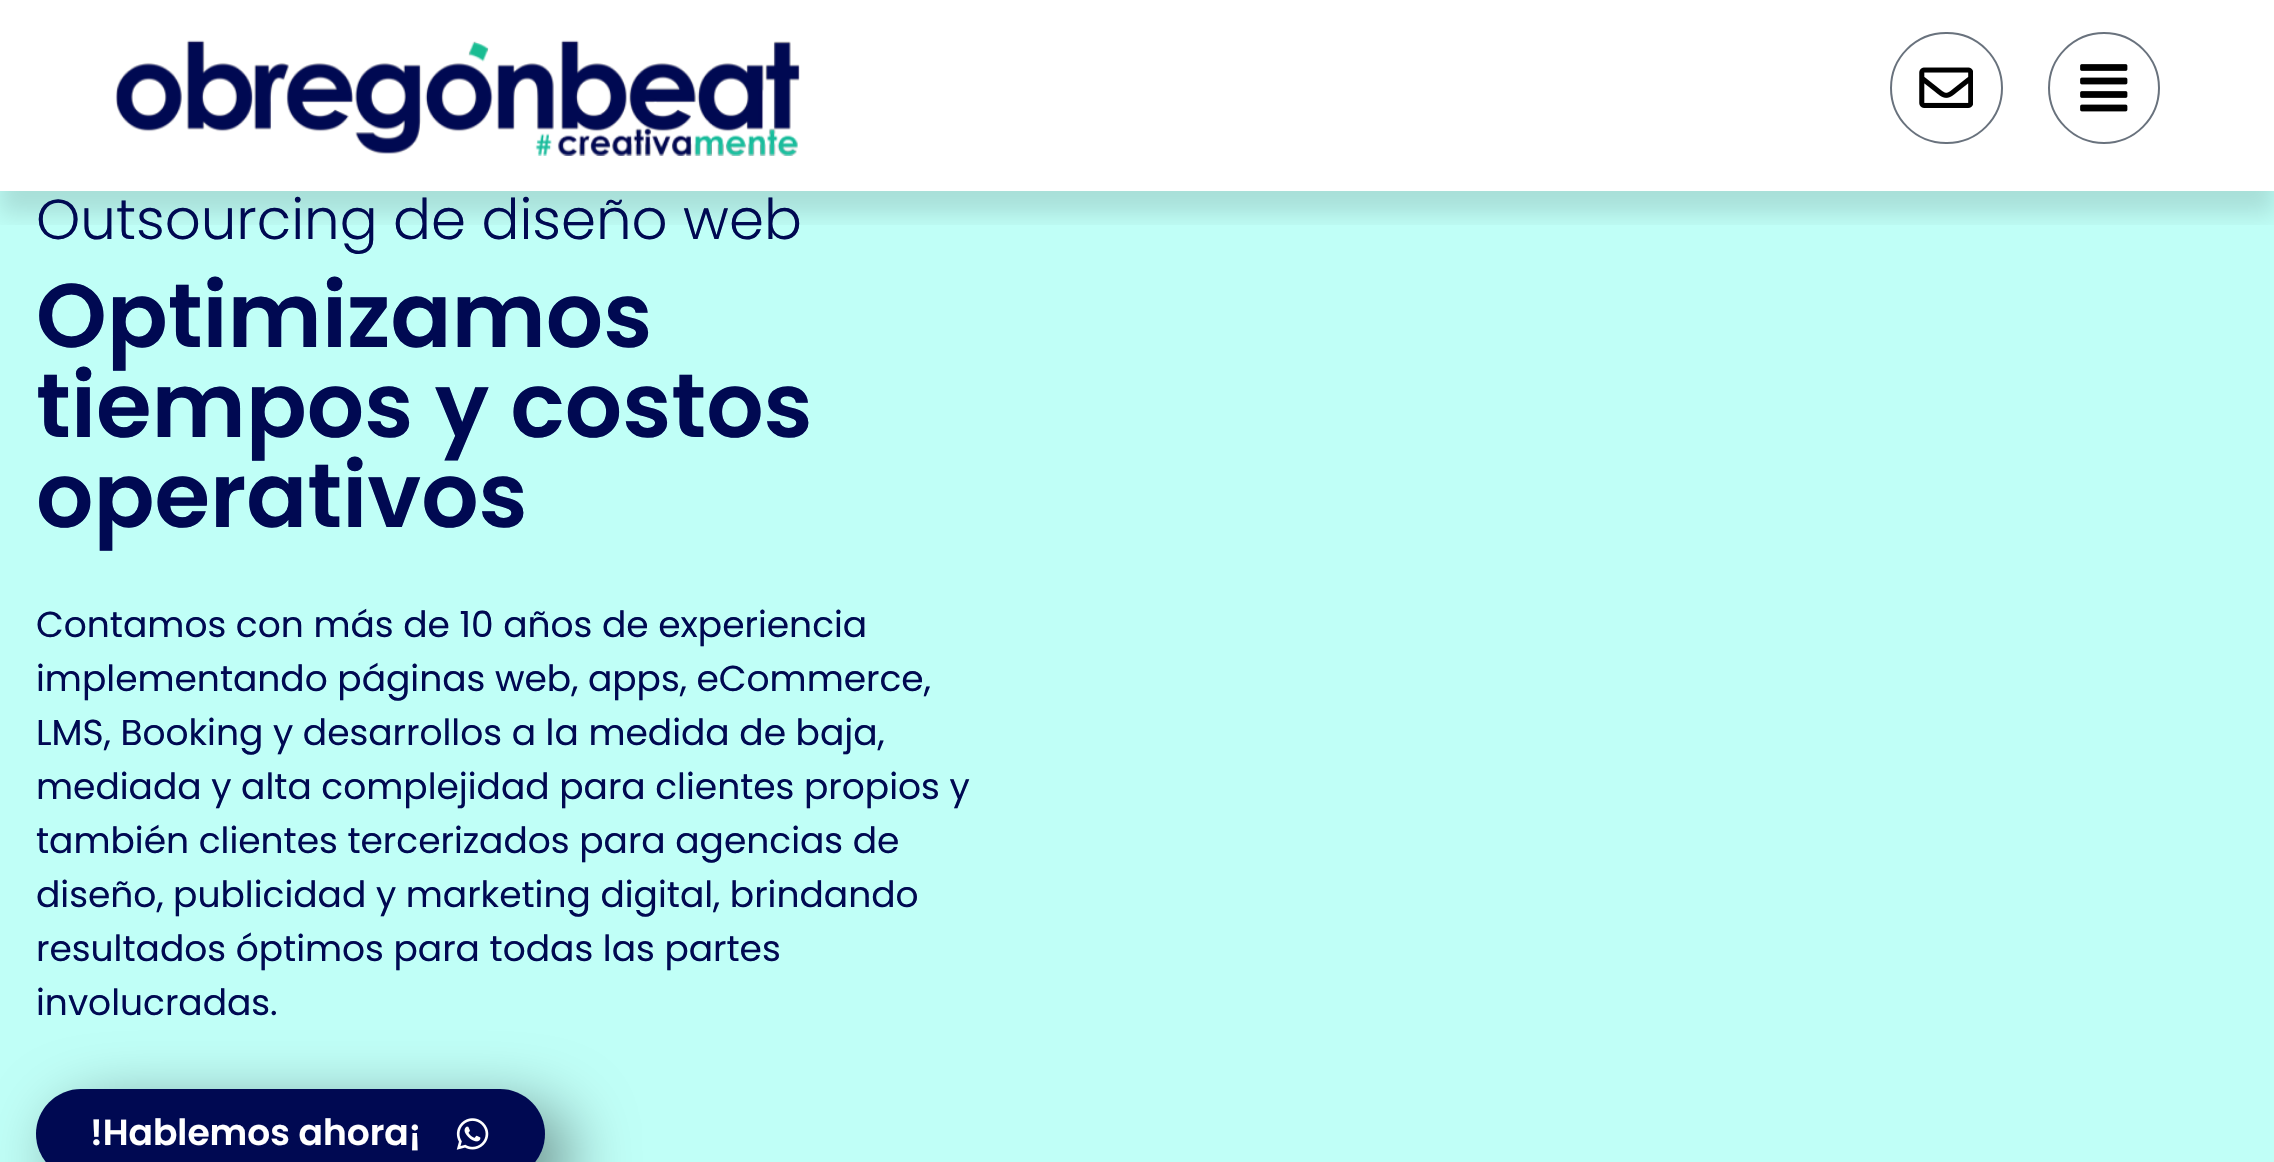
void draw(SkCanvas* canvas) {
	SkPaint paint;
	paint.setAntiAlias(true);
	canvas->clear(0xffffffff);
	paint.setColor(0xffc0fff7);
	canvas->drawRect(SkRect::MakeXYWH(0, 191, 2274, 971), paint);
	canvas->save();
	canvas->clipRect(SkRect::MakeXYWH(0, 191, 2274, 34));
	paint.setColor(0x1f000000);
	paint.setMaskFilter(SkMaskFilter::MakeBlur(kNormal_SkBlurStyle, 11));
	canvas->drawRect(SkRect::MakeXYWH(0, 23, 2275, 191), paint);
	paint.setMaskFilter(nullptr);
	canvas->restore();
	canvas->drawImageRect(SkImages::DeferredFromEncodedData(SkData::MakeFromFileName("img1.png")), SkRect::MakeXYWH(115, 40, 685, 116), SkSamplingOptions());
	paint.setStroke(true);
	paint.setStrokeWidth(2);
	paint.setColor(0xff69727d);
	canvas->drawRoundRect(SkRect::MakeXYWH(1891, 33, 111, 110), 55, 55, paint);
	canvas->drawImageRect(SkImages::DeferredFromEncodedData(SkData::MakeFromFileName("img2.png")), SkRect::MakeXYWH(1919, 67, 54, 41), SkSamplingOptions());
	canvas->drawCircle(2104, 88, 55, paint);
	canvas->drawImageRect(SkImages::DeferredFromEncodedData(SkData::MakeFromFileName("img3.png")), SkRect::MakeXYWH(2080, 64, 48, 48), SkSamplingOptions());
	SkFont f1(fontMgr->matchFamilyStyle("Poppins", SkFontStyle(300, SkFontStyle::kNormal_Width, SkFontStyle::kUpright_Slant)), 56.25);
	f1.setSubpixel(true);
	paint.setStroke(false);
	paint.setColor(0xff000952);
	canvas->drawString("Outsourcing de diseño web", 36, 239, f1, paint);
	SkFont f2(fontMgr->matchFamilyStyle("Poppins", SkFontStyle(600, SkFontStyle::kNormal_Width, SkFontStyle::kUpright_Slant)), 90);
	f2.setSubpixel(true);
	canvas->drawString("Optimizamos", 36, 347, f2, paint);
	canvas->drawString("tiempos y costos", 36, 437, f2, paint);
	canvas->drawString("operativos", 36, 527, f2, paint);
	SkFont f3(fontMgr->matchFamilyStyle("Poppins", SkFontStyle::Normal()), 36);
	f3.setSubpixel(true);
	canvas->drawString("Contamos con más de 10 años de experiencia", 36, 637, f3, paint);
	canvas->drawString("implementando páginas web, apps, eCommerce,", 36, 691, f3, paint);
	canvas->drawString("LMS, Booking y desarrollos a la medida de baja,", 36, 745, f3, paint);
	canvas->drawString("mediada y alta complejidad para clientes propios y", 36, 799, f3, paint);
	canvas->drawString("también clientes tercerizados para agencias de", 36, 853, f3, paint);
	canvas->drawString("diseño, publicidad y marketing digital, brindando", 36, 907, f3, paint);
	canvas->drawString("resultados óptimos para todas las partes", 36, 961, f3, paint);
	canvas->drawString("involucradas.", 36, 1015, f3, paint);
	paint.setColor(0x80000000);
	paint.setMaskFilter(SkMaskFilter::MakeBlur(kNormal_SkBlurStyle, 34));
	canvas->drawRoundRect(SkRect::MakeXYWH(59, 1112, 508, 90), 45, 45, paint);
	paint.setMaskFilter(nullptr);
	paint.setColor(0xff000952);
	canvas->drawRoundRect(SkRect::MakeXYWH(36, 1089, 509, 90), 45, 45, paint);
	SkFont f4(fontMgr->matchFamilyStyle("Poppins", SkFontStyle(600, SkFontStyle::kNormal_Width, SkFontStyle::kUpright_Slant)), 36);
	f4.setSubpixel(true);
	paint.setColor(0xffffffff);
	canvas->drawString("!Hablemos ahora¡", 90, 1145, f4, paint);
	canvas->drawImageRect(SkImages::DeferredFromEncodedData(SkData::MakeFromFileName("img4.png")), SkRect::MakeXYWH(456, 1118, 33, 32), SkSamplingOptions());
}
